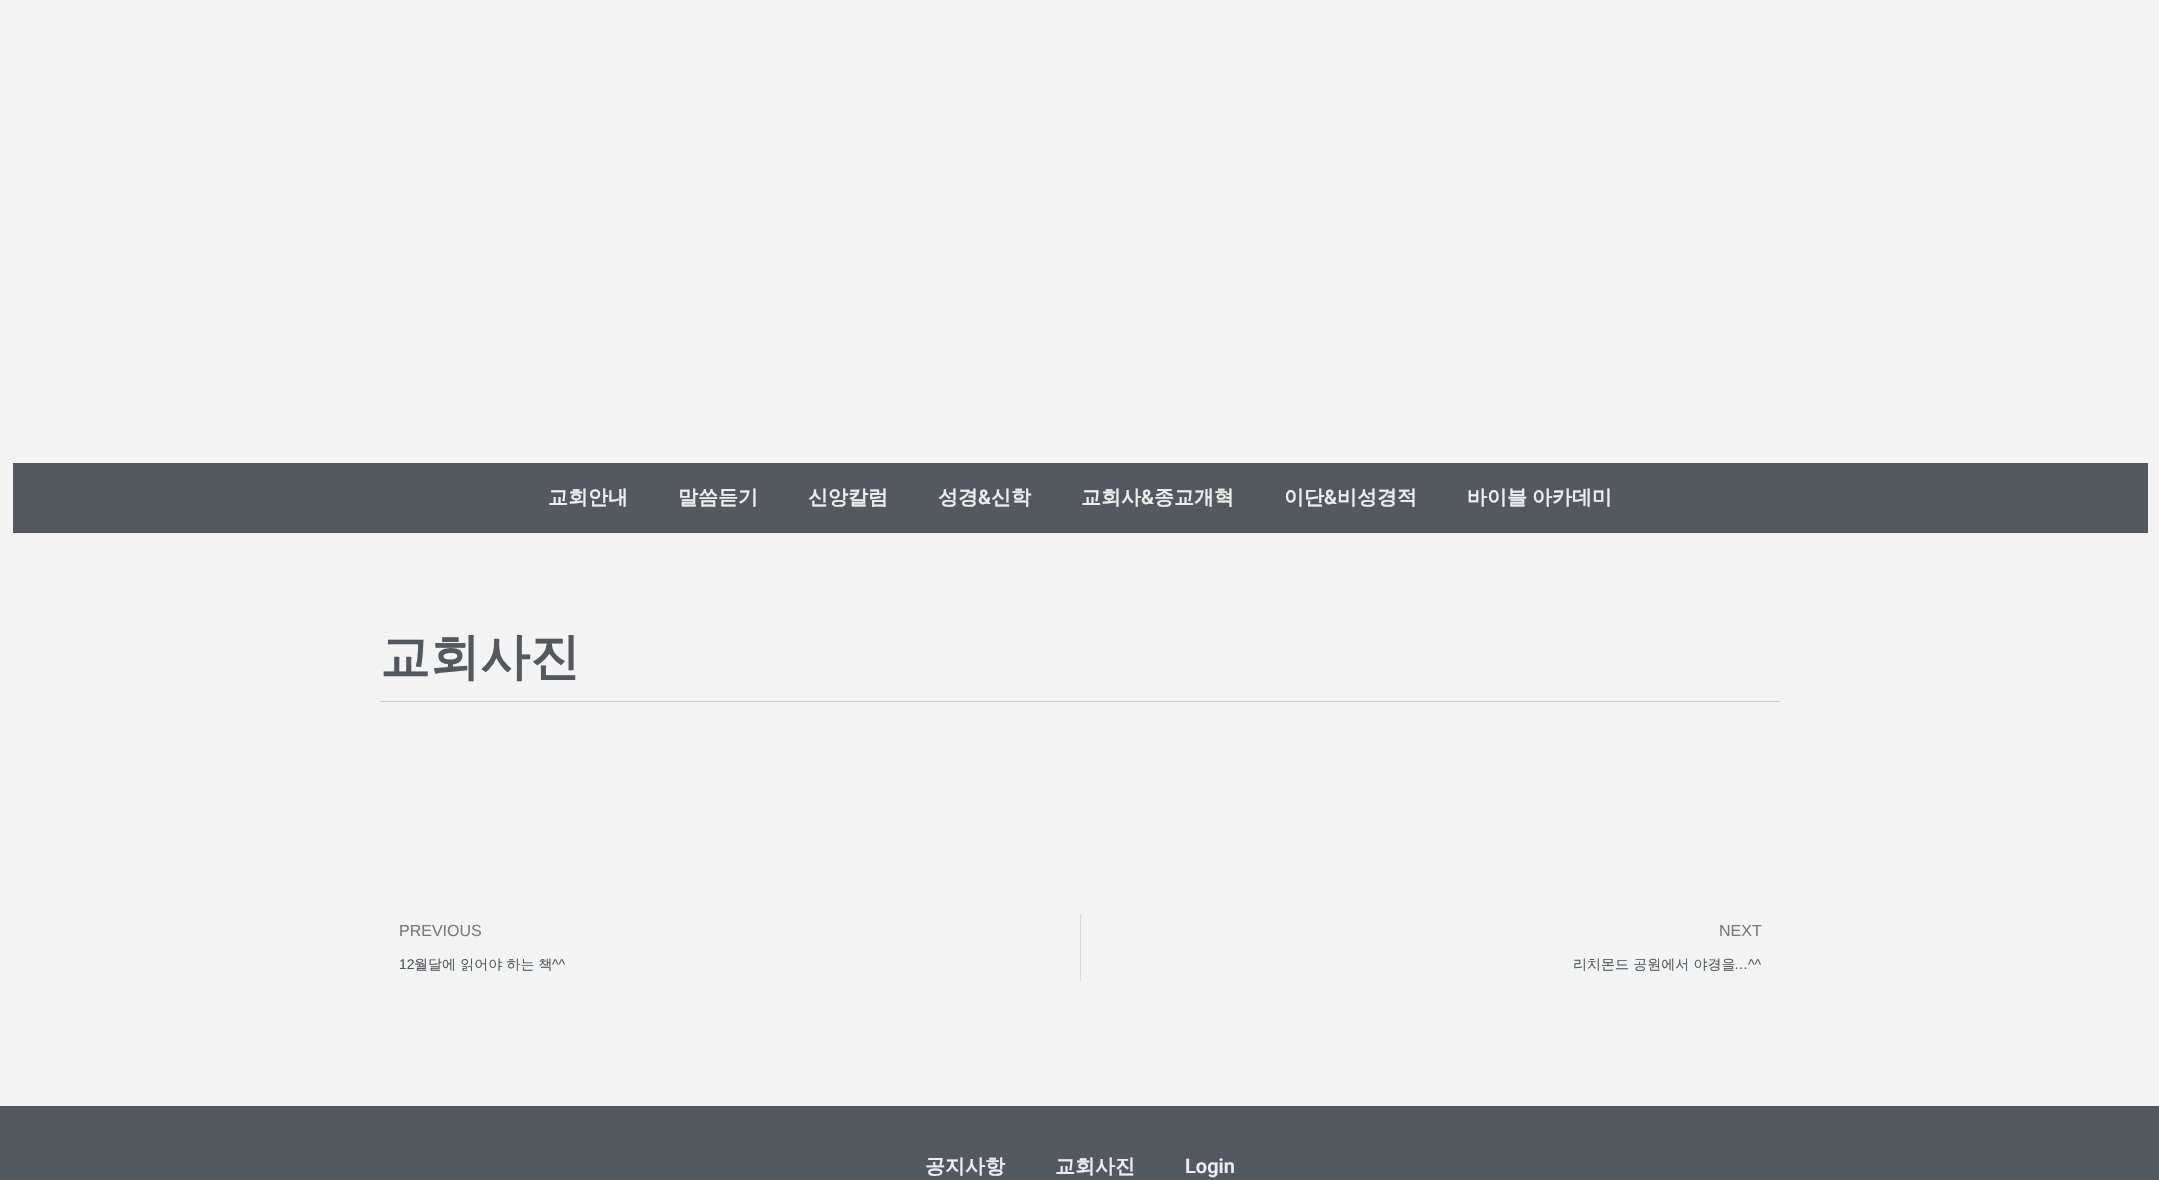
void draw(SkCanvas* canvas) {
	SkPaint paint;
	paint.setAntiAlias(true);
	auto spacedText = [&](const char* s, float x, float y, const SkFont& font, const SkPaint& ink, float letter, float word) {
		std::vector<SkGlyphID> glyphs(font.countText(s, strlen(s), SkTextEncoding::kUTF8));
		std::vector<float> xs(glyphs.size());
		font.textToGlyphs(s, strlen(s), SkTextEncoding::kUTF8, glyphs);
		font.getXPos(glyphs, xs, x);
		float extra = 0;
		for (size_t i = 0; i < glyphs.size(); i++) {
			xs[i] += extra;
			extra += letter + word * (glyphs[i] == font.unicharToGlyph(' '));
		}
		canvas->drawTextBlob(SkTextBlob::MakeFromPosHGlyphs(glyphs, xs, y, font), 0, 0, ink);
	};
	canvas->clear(0xfff3f3f3);
	paint.setColor(0xff54595f);
	canvas->drawRect(SkRect::MakeXYWH(13, 463, 2135, 70), paint);
	SkFont f1(fontMgr->matchFamilyStyle("WenQuanYi Zen Hei", SkFontStyle::Bold()), 20);
	f1.setSubpixel(true);
	paint.setColor(0xffededed);
	canvas->drawString("교회안내", 548, 504, f1, paint);
	canvas->drawString("말씀듣기", 678, 504, f1, paint);
	canvas->drawString("신앙칼럼", 808, 504, f1, paint);
	canvas->drawString("성경", 938, 504, f1, paint);
	SkFont f2(fontMgr->matchFamilyStyle("Roboto", SkFontStyle(600, SkFontStyle::kNormal_Width, SkFontStyle::kUpright_Slant)), 20);
	f2.setSubpixel(true);
	canvas->drawString("&", 978, 504, f2, paint);
	canvas->drawString("신학", 991, 504, f1, paint);
	canvas->drawString("교회사", 1081, 504, f1, paint);
	canvas->drawString("&", 1141, 504, f2, paint);
	canvas->drawString("종교개혁", 1154, 504, f1, paint);
	canvas->drawString("이단", 1284, 504, f1, paint);
	canvas->drawString("&", 1324, 504, f2, paint);
	canvas->drawString("비성경적", 1337, 504, f1, paint);
	spacedText("바이블 아카데미", 1467, 504, f1, paint, 0, -1);
	SkFont f3(fontMgr->matchFamilyStyle("WenQuanYi Zen Hei", SkFontStyle::Bold()), 50);
	f3.setSubpixel(true);
	paint.setColor(0xff54595f);
	canvas->drawString("교회사진", 380, 674, f3, paint);
	paint.setColor(0xffcccccc);
	canvas->drawRect(SkRect::MakeXYWH(380, 701, 1400, 1), paint);
	SkFont f4(fontMgr->matchFamilyStyle("Liberation Sans", SkFontStyle::Normal()), 16);
	f4.setSubpixel(true);
	paint.setColor(0xff7a7a7a);
	canvas->drawString("PREVIOUS", 399, 936, f4, paint);
	SkFont f5(fontMgr->matchFamilyStyle("Liberation Sans", SkFontStyle::Normal()), 14);
	f5.setSubpixel(true);
	paint.setColor(0xff54595f);
	canvas->drawString("12", 399, 969, f5, paint);
	SkFont f6(fontMgr->matchFamilyStyle("WenQuanYi Zen Hei", SkFontStyle(500, SkFontStyle::kNormal_Width, SkFontStyle::kUpright_Slant)), 14);
	f6.setSubpixel(true);
	canvas->drawString("월달에 읽어야 하는 책", 414, 969, f6, paint);
	canvas->drawString("^^", 552, 969, f5, paint);
	paint.setColor(0xffd5d8dc);
	canvas->drawRect(SkRect::MakeXYWH(1080, 914, 1, 67), paint);
	paint.setColor(0xff7a7a7a);
	canvas->drawString("NEXT", 1719, 936, f4, paint);
	paint.setColor(0xff54595f);
	canvas->drawString("리치몬드 공원에서 야경을", 1573, 969, f6, paint);
	canvas->drawString("…^^", 1734, 969, f5, paint);
	canvas->drawRect(SkRect::MakeXYWH(0, 1106, 2159, 74), paint);
	paint.setColor(0xffededed);
	canvas->drawString("공지사항", 925, 1173, f1, paint);
	canvas->drawString("교회사진", 1055, 1173, f1, paint);
	canvas->drawString("Login", 1185, 1173, f2, paint);
}
